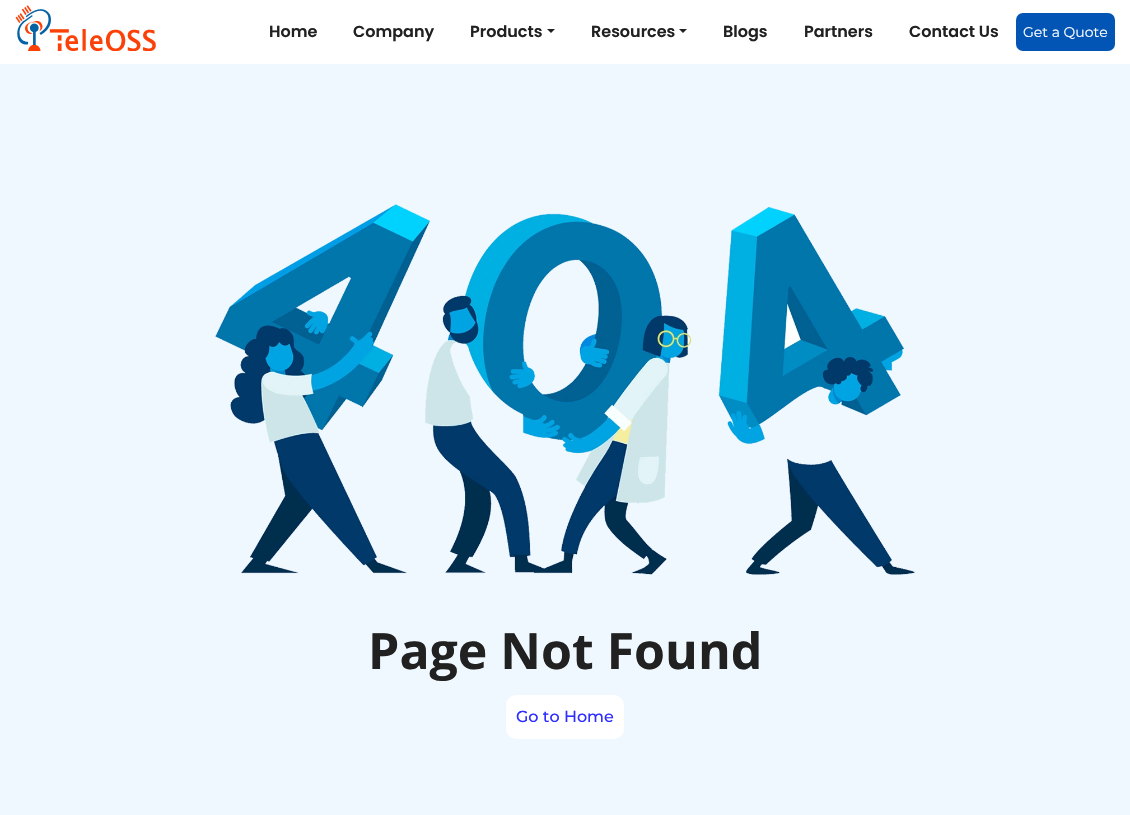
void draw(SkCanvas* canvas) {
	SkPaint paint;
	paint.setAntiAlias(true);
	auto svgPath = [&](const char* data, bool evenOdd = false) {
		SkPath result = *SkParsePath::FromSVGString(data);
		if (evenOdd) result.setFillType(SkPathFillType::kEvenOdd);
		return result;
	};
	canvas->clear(0xffffffff);
	canvas->drawImageRect(SkImages::DeferredFromEncodedData(SkData::MakeFromFileName("img1.png")), SkRect::MakeXYWH(15, 5, 141, 46), SkSamplingOptions());
	SkFont f1(fontMgr->matchFamilyStyle("Poppins", SkFontStyle(600, SkFontStyle::kNormal_Width, SkFontStyle::kUpright_Slant)), 16);
	f1.setSubpixel(true);
	paint.setColor(0xff212121);
	canvas->drawString("Home", 269, 37, f1, paint);
	canvas->drawString("Company", 353, 37, f1, paint);
	canvas->drawString("Products", 470, 37, f1, paint);
	canvas->drawPath(svgPath("M547 29H555L551 33Z"), paint);
	canvas->drawString("Resources", 591, 37, f1, paint);
	canvas->drawPath(svgPath("M679 29H687L683 33Z"), paint);
	canvas->drawString("Blogs", 723, 37, f1, paint);
	canvas->drawString("Partners", 804, 37, f1, paint);
	canvas->drawString("Contact Us", 909, 37, f1, paint);
	paint.setColor(0xff0355b5);
	canvas->drawRoundRect(SkRect::MakeXYWH(1016, 13, 99, 38), 7, 7, paint);
	SkFont f2(fontMgr->matchFamilyStyle("Montserrat", SkFontStyle::Normal()), 14);
	f2.setSubpixel(true);
	paint.setColor(0xffffffff);
	canvas->drawString("Get a Quote", 1023, 37, f2, paint);
	paint.setColor(0xfff0f8ff);
	canvas->drawRect(SkRect::MakeXYWH(0, 64, 1130, 751), paint);
	canvas->drawImageRect(SkImages::DeferredFromEncodedData(SkData::MakeFromFileName("img2.png")), SkRect::MakeXYWH(215, 204, 700, 371), SkSamplingOptions());
	SkFont f3(fontMgr->matchFamilyStyle("Open Sans", SkFontStyle::Bold()), 50);
	f3.setSubpixel(true);
	paint.setColor(0xff212121);
	canvas->drawString("Page Not Found", 368, 669, f3, paint);
	paint.setColor(0xffffffff);
	canvas->drawRoundRect(SkRect::MakeXYWH(506, 695, 118, 44), 10, 10, paint);
	SkFont f4(fontMgr->matchFamilyStyle("Montserrat", SkFontStyle(500, SkFontStyle::kNormal_Width, SkFontStyle::kUpright_Slant)), 16);
	f4.setSubpixel(true);
	paint.setColor(0xff2e2eff);
	canvas->drawString("Go to Home", 516, 722, f4, paint);
}
